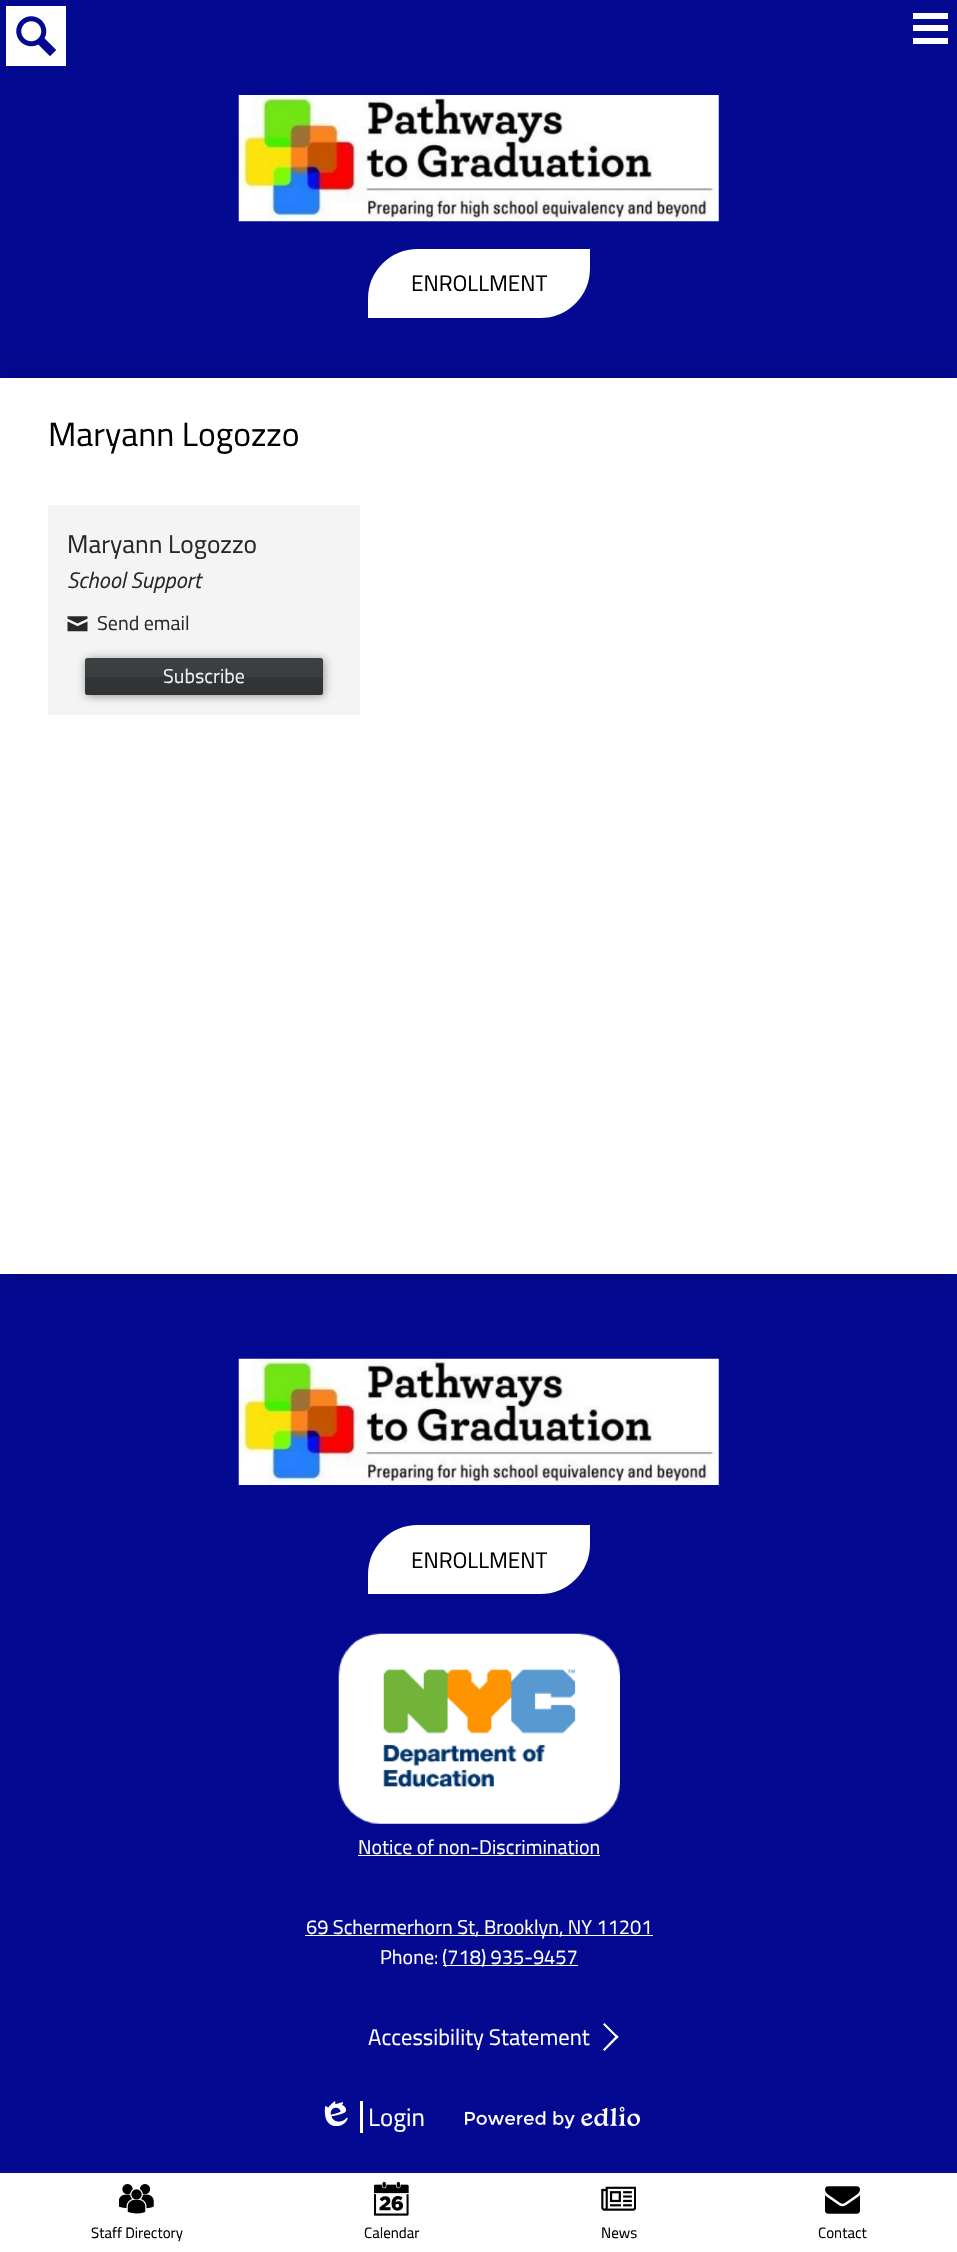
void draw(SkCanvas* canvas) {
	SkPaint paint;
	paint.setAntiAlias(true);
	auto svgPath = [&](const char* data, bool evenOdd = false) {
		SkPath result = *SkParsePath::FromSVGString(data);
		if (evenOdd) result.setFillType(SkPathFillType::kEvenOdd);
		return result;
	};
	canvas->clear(0xff040991);
	paint.setColor(0xffffffff);
	canvas->drawRect(SkRect::MakeXYWH(913, 13, 35, 6), paint);
	canvas->drawRect(SkRect::MakeXYWH(913, 25, 35, 6), paint);
	canvas->drawRect(SkRect::MakeXYWH(913, 38, 35, 6), paint);
	canvas->drawImageRect(SkImages::DeferredFromEncodedData(SkData::MakeFromFileName("img1.png")), SkRect::MakeXYWH(238, 95, 481, 127), SkSamplingOptions());
	canvas->drawRect(SkRect::MakeXYWH(6, 6, 60, 60), paint);
	canvas->drawImageRect(SkImages::DeferredFromEncodedData(SkData::MakeFromFileName("img2.png")), SkRect::MakeXYWH(16, 16, 41, 41), SkSamplingOptions());
	canvas->drawPath(svgPath("M418 250.5H588.5V268C588.5 295 567 316.5 540 316.5H369.5V299C369.5 272 391 250.5 418 250.5Z"), paint);
	paint.setStroke(true);
	paint.setStrokeWidth(3);
	canvas->drawPath(svgPath("M418 250.5H588.5V268C588.5 295 567 316.5 540 316.5H369.5V299C369.5 272 391 250.5 418 250.5Z"), paint);
	SkFont f1(fontMgr->matchFamilyStyle("Titillium Web", SkFontStyle::Normal()), 22.5);
	f1.setSubpixel(true);
	paint.setStroke(false);
	paint.setColor(0xff000000);
	canvas->drawString("ENROLLMENT", 411, 291, f1, paint);
	paint.setColor(0x26000000);
	paint.setMaskFilter(SkMaskFilter::MakeBlur(kNormal_SkBlurStyle, 10));
	canvas->drawRect(SkRect::MakeXYWH(0, 378, 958, 896), paint);
	paint.setMaskFilter(nullptr);
	paint.setColor(0xffffffff);
	canvas->drawRect(SkRect::MakeXYWH(0, 378, 957, 896), paint);
	SkFont f2(fontMgr->matchFamilyStyle("Titillium Web", SkFontStyle::Normal()), 33.75);
	f2.setSubpixel(true);
	paint.setColor(0xff000000);
	canvas->drawString("Maryann Logozzo", 48, 446, f2, paint);
	paint.setColor(0xfff4f4f4);
	canvas->drawRect(SkRect::MakeXYWH(48, 505, 312, 210), paint);
	SkFont f3(fontMgr->matchFamilyStyle("Titillium Web", SkFontStyle::Normal()), 25.5);
	f3.setSubpixel(true);
	paint.setColor(0xff282828);
	canvas->drawString("Maryann Logozzo", 67, 553, f3, paint);
	SkFont f4(fontMgr->matchFamilyStyle("Titillium Web", SkFontStyle::Italic()), 22.5);
	f4.setSubpixel(true);
	canvas->drawString("School Support", 67, 588, f4, paint);
	canvas->drawImageRect(SkImages::DeferredFromEncodedData(SkData::MakeFromFileName("img3.png")), SkRect::MakeXYWH(67, 616, 21, 16), SkSamplingOptions());
	SkFont f5(fontMgr->matchFamilyStyle("Titillium Web", SkFontStyle::Normal()), 20);
	f5.setSubpixel(true);
	canvas->drawString("Send email", 97, 630, f5, paint);
	paint.setColor(0x66000000);
	paint.setMaskFilter(SkMaskFilter::MakeBlur(kNormal_SkBlurStyle, 5));
	canvas->drawRoundRect(SkRect::MakeXYWH(86, 659, 238, 37), 2.5, 2.5, paint);
	paint.setMaskFilter(nullptr);
	{
		const SkColor colors[] = {0xff3c4042, 0xff3a3e3f, 0xff303436, 0xff303436};
		const float stops[] = {0, 0.5, 0.51, 1};
		const SkPoint ends[] = {{204, 658}, {204, 695}};
		paint.setShader(SkGradientShader::MakeLinear(ends, colors, stops, 4, SkTileMode::kClamp));
		paint.setAlpha(255);
	}
	canvas->drawRoundRect(SkRect::MakeXYWH(85, 658, 238, 37), 2.5, 2.5, paint);
	paint.setShader(nullptr);
	paint.setColor(0xffefefef);
	canvas->drawString("Subscribe", 163, 683, f5, paint);
	canvas->drawImageRect(SkImages::DeferredFromEncodedData(SkData::MakeFromFileName("img4.png")), SkRect::MakeXYWH(238, 1358, 481, 127), SkSamplingOptions());
	paint.setColor(0xffffffff);
	canvas->drawPath(svgPath("M418 1526.5H588.5V1544C588.5 1571 567 1592.5 540 1592.5H369.5V1575C369.5 1548 391 1526.5 418 1526.5Z"), paint);
	paint.setStroke(true);
	canvas->drawPath(svgPath("M418 1526.5H588.5V1544C588.5 1571 567 1592.5 540 1592.5H369.5V1575C369.5 1548 391 1526.5 418 1526.5Z"), paint);
	paint.setStroke(false);
	paint.setColor(0xff000000);
	canvas->drawString("ENROLLMENT", 411, 1568, f1, paint);
	canvas->drawImageRect(SkImages::DeferredFromEncodedData(SkData::MakeFromFileName("img5.png")), SkRect::MakeXYWH(338, 1633, 282, 191), SkSamplingOptions());
	paint.setColor(0xffffffff);
	canvas->drawString("Notice of non-Discrimination", 358, 1854, f5, paint);
	canvas->drawRect(SkRect::MakeXYWH(358, 1855, 242, 1), paint);
	canvas->drawRect(SkRect::MakeXYWH(305, 1935, 348, 1), paint);
	canvas->drawString("69 Schermerhorn St, Brooklyn, NY 11201", 306, 1934, f5, paint);
	canvas->drawString("Phone:", 380, 1964, f5, paint);
	canvas->drawRect(SkRect::MakeXYWH(443, 1965, 135, 1), paint);
	canvas->drawString("(718) 935-9457", 442, 1964, f5, paint);
	canvas->drawRect(SkRect::MakeXYWH(360, 2101, 3, 32), paint);
	canvas->drawImageRect(SkImages::DeferredFromEncodedData(SkData::MakeFromFileName("img6.png")), SkRect::MakeXYWH(324, 2101, 24, 25), SkSamplingOptions());
	SkFont f6(fontMgr->matchFamilyStyle("Titillium Web", SkFontStyle::Normal()), 25);
	f6.setSubpixel(true);
	canvas->drawString("Login", 368, 2126, f6, paint);
	canvas->drawImageRect(SkImages::DeferredFromEncodedData(SkData::MakeFromFileName("img7.png")), SkRect::MakeXYWH(465, 2106, 175, 23), SkSamplingOptions());
	canvas->drawString("Accessibility Statement", 368, 2045, f1, paint);
	canvas->drawPath(svgPath("M604.5 2023L618.5 2037L617 2038.5L603 2024.5Z"), paint);
	canvas->drawPath(svgPath("M617 2035L618.5 2037L604.5 2051L603 2049.5Z"), paint);
	canvas->drawRect(SkRect::MakeXYWH(0, 2173, 957, 79), paint);
	canvas->drawImageRect(SkImages::DeferredFromEncodedData(SkData::MakeFromFileName("img8.png")), SkRect::MakeXYWH(119, 2184, 35, 30), SkSamplingOptions());
	SkFont f7(fontMgr->matchFamilyStyle("Titillium Web", SkFontStyle::Normal()), 15);
	f7.setSubpixel(true);
	paint.setColor(0xff000000);
	canvas->drawString("Staff Directory", 91, 2238, f7, paint);
	canvas->drawImageRect(SkImages::DeferredFromEncodedData(SkData::MakeFromFileName("img9.png")), SkRect::MakeXYWH(374, 2181, 35, 35), SkSamplingOptions());
	canvas->drawString("Calendar", 364, 2238, f7, paint);
	canvas->drawImageRect(SkImages::DeferredFromEncodedData(SkData::MakeFromFileName("img10.png")), SkRect::MakeXYWH(601, 2186, 35, 25), SkSamplingOptions());
	canvas->drawString("News", 601, 2238, f7, paint);
	canvas->drawImageRect(SkImages::DeferredFromEncodedData(SkData::MakeFromFileName("img11.png")), SkRect::MakeXYWH(825, 2186, 35, 28), SkSamplingOptions());
	canvas->drawString("Contact", 818, 2238, f7, paint);
}
